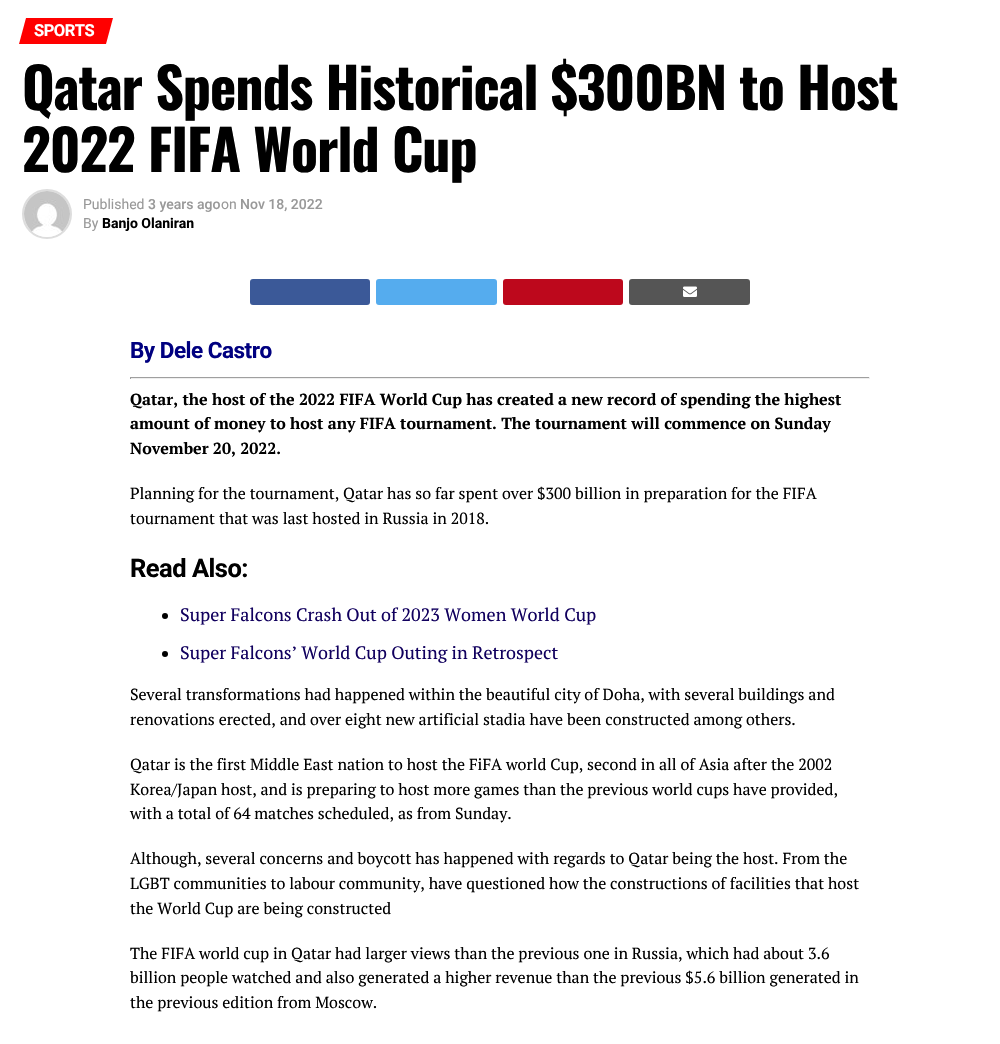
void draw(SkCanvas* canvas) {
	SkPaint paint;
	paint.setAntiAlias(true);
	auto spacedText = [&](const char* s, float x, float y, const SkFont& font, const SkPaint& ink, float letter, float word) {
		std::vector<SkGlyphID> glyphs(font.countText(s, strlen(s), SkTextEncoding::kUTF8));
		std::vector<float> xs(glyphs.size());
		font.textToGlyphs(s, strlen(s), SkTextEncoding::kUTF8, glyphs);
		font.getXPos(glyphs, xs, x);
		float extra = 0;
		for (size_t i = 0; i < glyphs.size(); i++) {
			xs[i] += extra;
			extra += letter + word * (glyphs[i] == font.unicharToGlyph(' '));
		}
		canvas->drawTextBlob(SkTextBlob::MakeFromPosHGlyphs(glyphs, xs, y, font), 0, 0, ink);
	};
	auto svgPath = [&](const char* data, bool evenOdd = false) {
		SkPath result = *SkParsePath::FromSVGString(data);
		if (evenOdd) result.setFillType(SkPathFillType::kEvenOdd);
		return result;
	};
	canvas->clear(0xffffffff);
	paint.setColor(0xffff0000);
	canvas->drawPath(svgPath("M26 18H113L106 44H19Z"), paint);
	SkFont f1(fontMgr->matchFamilyStyle("Roboto", SkFontStyle::Bold()), 16.5);
	f1.setSubpixel(true);
	paint.setColor(0xffffffff);
	spacedText("SPORTS", 34, 36, f1, paint, -0.5, 0);
	SkFont f2(fontMgr->matchFamilyStyle("Oswald", SkFontStyle::Bold()), 56);
	f2.setSubpixel(true);
	paint.setColor(0xff000000);
	spacedText("Qatar Spends Historical $300BN to Host", 22, 110, f2, paint, -1.1, 0);
	spacedText("2022 FIFA World Cup", 22, 172, f2, paint, -1.1, 0);
	paint.setStroke(true);
	paint.setStrokeWidth(2);
	paint.setColor(0xffdddddd);
	canvas->drawCircle(47, 214, 24, paint);
	canvas->drawImageRect(SkImages::DeferredFromEncodedData(SkData::MakeFromFileName("img1.png")), SkRect::MakeXYWH(24, 191, 46, 46), SkSamplingOptions());
	SkFont f3(fontMgr->matchFamilyStyle("Roboto", SkFontStyle::Normal()), 14);
	f3.setSubpixel(true);
	paint.setStroke(false);
	paint.setColor(0xff999999);
	canvas->drawString("Published", 83, 209, f3, paint);
	SkFont f4(fontMgr->matchFamilyStyle("Roboto", SkFontStyle(500, SkFontStyle::kNormal_Width, SkFontStyle::kUpright_Slant)), 14);
	f4.setSubpixel(true);
	canvas->drawString("3 years ago", 148, 209, f4, paint);
	canvas->drawString("on", 221, 209, f3, paint);
	canvas->drawString("Nov 18, 2022", 240, 209, f4, paint);
	canvas->drawString("By", 83, 228, f3, paint);
	SkFont f5(fontMgr->matchFamilyStyle("Roboto", SkFontStyle::Bold()), 14);
	f5.setSubpixel(true);
	paint.setColor(0xff000000);
	canvas->drawString("Banjo Olaniran", 102, 228, f5, paint);
	paint.setColor(0xff3b5998);
	canvas->drawRoundRect(SkRect::MakeXYWH(250, 279, 120, 26), 3, 3, paint);
	paint.setColor(0xff55acee);
	canvas->drawRoundRect(SkRect::MakeXYWH(376, 279, 121, 26), 3, 3, paint);
	paint.setColor(0xffbd081c);
	canvas->drawRoundRect(SkRect::MakeXYWH(503, 279, 120, 26), 3, 3, paint);
	paint.setColor(0xff555555);
	canvas->drawRoundRect(SkRect::MakeXYWH(629, 279, 121, 26), 3, 3, paint);
	canvas->drawImageRect(SkImages::DeferredFromEncodedData(SkData::MakeFromFileName("img2.png")), SkRect::MakeXYWH(683, 286, 14, 11), SkSamplingOptions());
	SkFont f6(fontMgr->matchFamilyStyle("Roboto", SkFontStyle::Bold()), 22.5);
	f6.setSubpixel(true);
	paint.setColor(0xff000080);
	spacedText("By Dele Castro", 130, 358, f6, paint, -0.5, 0);
	paint.setColor(0xff9f9f9f);
	canvas->drawRect(SkRect::MakeXYWH(130, 377, 740, 1), paint);
	paint.setColor(0xffeeeeee);
	canvas->drawRect(SkRect::MakeXYWH(869, 377, 1, 2), paint);
	canvas->drawRect(SkRect::MakeXYWH(130, 378, 740, 1), paint);
	paint.setColor(0xff9f9f9f);
	canvas->drawRect(SkRect::MakeXYWH(130, 377, 1, 2), paint);
	SkFont f7(fontMgr->matchFamilyStyle("PT Serif", SkFontStyle::Bold()), 16);
	f7.setSubpixel(true);
	paint.setColor(0xff000000);
	canvas->drawString("Qatar, the host of the 2022 FIFA World Cup has created a new record of spending the highest", 130, 405, f7, paint);
	canvas->drawString("amount of money to host any FIFA tournament. The tournament will commence on Sunday", 130, 429, f7, paint);
	canvas->drawString("November 20, 2022.", 130, 454, f7, paint);
	SkFont f8(fontMgr->matchFamilyStyle("PT Serif", SkFontStyle::Normal()), 16);
	f8.setSubpixel(true);
	canvas->drawString("Planning for the tournament, Qatar has so far spent over $300 billion in preparation for the FIFA", 130, 499, f8, paint);
	canvas->drawString("tournament that was last hosted in Russia in 2018.", 130, 524, f8, paint);
	SkFont f9(fontMgr->matchFamilyStyle("Roboto", SkFontStyle::Bold()), 25.5);
	f9.setSubpixel(true);
	spacedText("Read Also:", 130, 577, f9, paint, -0.5, 0);
	canvas->drawCircle(165, 616, 3, paint);
	SkFont f10(fontMgr->matchFamilyStyle("PT Serif", SkFontStyle::Normal()), 18);
	f10.setSubpixel(true);
	paint.setColor(0xff11005e);
	canvas->drawString("Super Falcons Crash Out of 2023 Women World Cup", 180, 621, f10, paint);
	paint.setColor(0xff000000);
	canvas->drawCircle(165, 654, 3, paint);
	paint.setColor(0xff11005e);
	canvas->drawString("Super Falcons’ World Cup Outing in Retrospect", 180, 659, f10, paint);
	paint.setColor(0xff000000);
	canvas->drawString("Several transformations had happened within the beautiful city of Doha, with several buildings and", 130, 700, f8, paint);
	canvas->drawString("renovations erected, and over eight new artificial stadia have been constructed among others.", 130, 725, f8, paint);
	canvas->drawString("Qatar is the first Middle East nation to host the FiFA world Cup, second in all of Asia after the 2002", 130, 770, f8, paint);
	canvas->drawString("Korea/Japan host, and is preparing to host more games than the previous world cups have provided,", 130, 795, f8, paint);
	canvas->drawString("with a total of 64 matches scheduled, as from Sunday.", 130, 819, f8, paint);
	canvas->drawString("Although, several concerns and boycott has happened with regards to Qatar being the host. From the", 130, 864, f8, paint);
	canvas->drawString("LGBT communities to labour community, have questioned how the constructions of facilities that host", 130, 889, f8, paint);
	canvas->drawString("the World Cup are being constructed", 130, 914, f8, paint);
	canvas->drawString("The FIFA world cup in Qatar had larger views than the previous one in Russia, which had about 3.6", 130, 959, f8, paint);
	canvas->drawString("billion people watched and also generated a higher revenue than the previous $5.6 billion generated in", 130, 983, f8, paint);
	canvas->drawString("the previous edition from Moscow.", 130, 1008, f8, paint);
}
